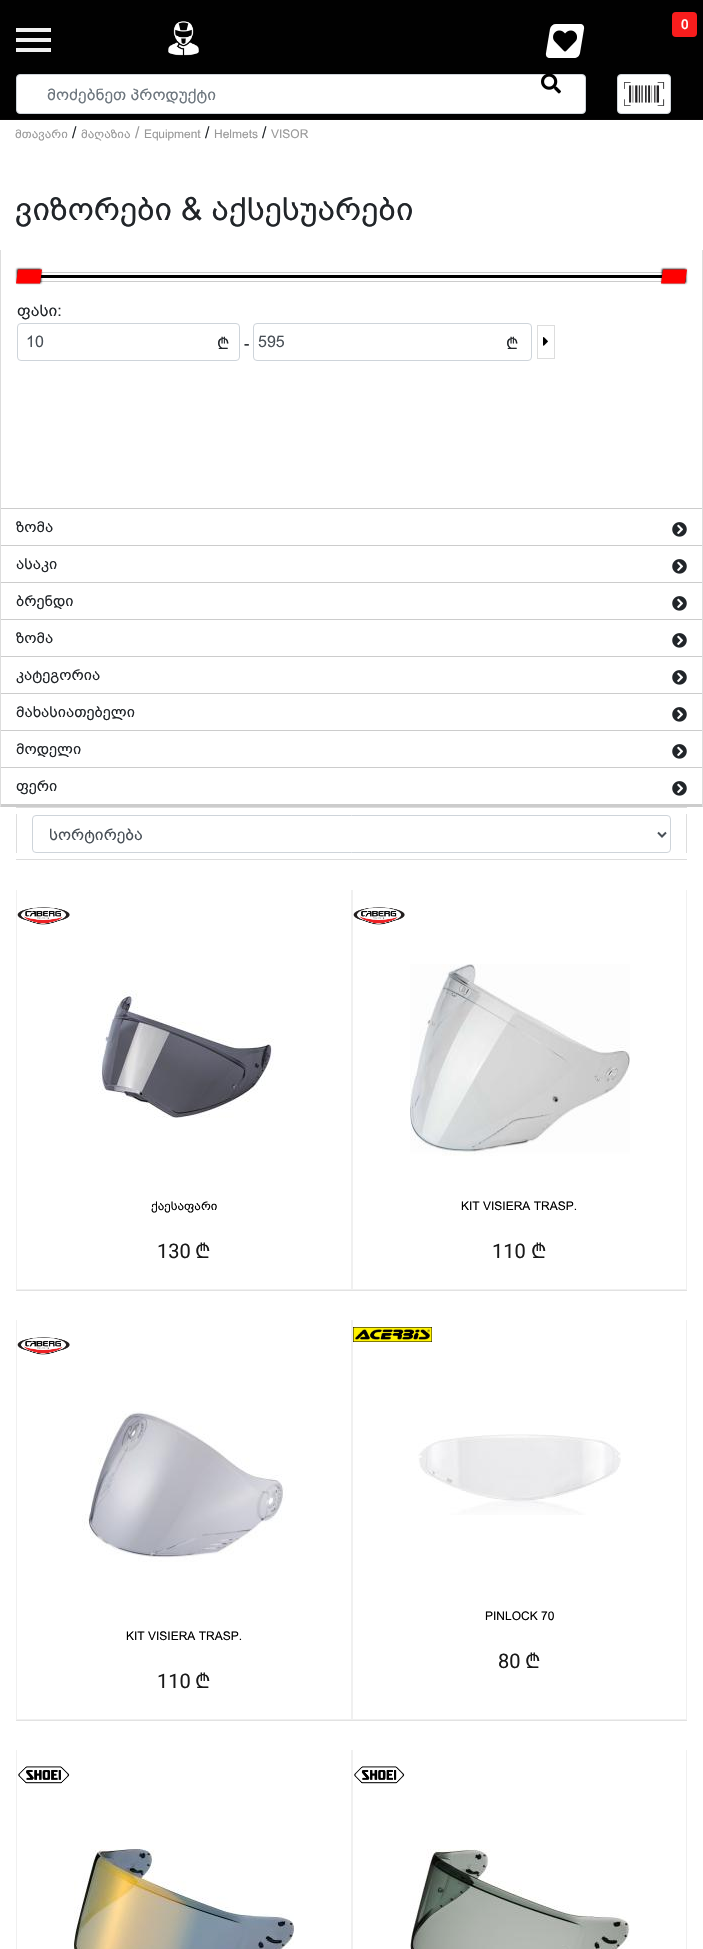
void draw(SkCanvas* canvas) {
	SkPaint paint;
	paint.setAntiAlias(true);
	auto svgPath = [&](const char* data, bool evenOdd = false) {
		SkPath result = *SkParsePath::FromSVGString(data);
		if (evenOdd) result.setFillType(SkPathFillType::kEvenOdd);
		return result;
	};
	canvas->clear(0xffffffff);
	paint.setColor(0xff010101);
	canvas->drawRect(SkRect::MakeXYWH(0, 0, 703, 119), paint);
	paint.setColor(0xff090808);
	canvas->drawRect(SkRect::MakeXYWH(0, 119, 703, 1), paint);
	paint.setColor(0xfff1f1f1);
	canvas->drawRect(SkRect::MakeXYWH(16, 28, 35, 4), paint);
	canvas->drawRect(SkRect::MakeXYWH(16, 38, 35, 4), paint);
	canvas->drawRect(SkRect::MakeXYWH(16, 48, 35, 4), paint);
	canvas->drawImageRect(SkImages::DeferredFromEncodedData(SkData::MakeFromFileName("img1.png")), SkRect::MakeXYWH(168, 21, 31, 35), SkSamplingOptions());
	paint.setColor(0xffffffff);
	canvas->drawPath(svgPath("M556 24H580C583 24 584.5 26 584 29L580 53C579.5 56 577 58 574 58H550C547 58 545.5 56 546 53L550 29C550.5 26 553 24 556 24Z"), paint);
	canvas->drawImageRect(SkImages::DeferredFromEncodedData(SkData::MakeFromFileName("img2.png")), SkRect::MakeXYWH(553, 30, 24, 22), SkSamplingOptions());
	paint.setColor(0xfff81d1d);
	canvas->drawRoundRect(SkRect::MakeXYWH(672, 12, 25, 25), 4, 4, paint);
	SkFont f1(fontMgr->matchFamilyStyle("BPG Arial", SkFontStyle::Bold()), 13);
	f1.setSubpixel(true);
	paint.setColor(0xffffffff);
	canvas->drawString("0", 681, 29, f1, paint);
	canvas->drawRoundRect(SkRect::MakeXYWH(16.5, 74.5, 569, 39), 3.5, 3.5, paint);
	paint.setStroke(true);
	paint.setStrokeWidth(1);
	paint.setColor(0xffced4da);
	canvas->drawRoundRect(SkRect::MakeXYWH(16.5, 74.5, 569, 39), 3.5, 3.5, paint);
	canvas->drawImageRect(SkImages::DeferredFromEncodedData(SkData::MakeFromFileName("img3.png")), SkRect::MakeXYWH(541, 74, 20, 20), SkSamplingOptions());
	SkFont f2(fontMgr->matchFamilyStyle("BPG Arial", SkFontStyle::Normal()), 16);
	f2.setSubpixel(true);
	paint.setStroke(false);
	paint.setColor(0xff6c757d);
	canvas->drawString("მოძებნეთ პროდუქტი", 47, 100, f2, paint);
	paint.setColor(0xffffffff);
	canvas->drawRoundRect(SkRect::MakeXYWH(617.5, 74.5, 53, 39), 3.5, 3.5, paint);
	paint.setStroke(true);
	paint.setColor(0xffced4da);
	canvas->drawRoundRect(SkRect::MakeXYWH(617.5, 74.5, 53, 39), 3.5, 3.5, paint);
	canvas->drawImageRect(SkImages::DeferredFromEncodedData(SkData::MakeFromFileName("img4.png")), SkRect::MakeXYWH(624, 82, 41, 24), SkSamplingOptions());
	SkFont f3(fontMgr->matchFamilyStyle("BPG Arial", SkFontStyle::Normal()), 12);
	f3.setSubpixel(true);
	paint.setStroke(false);
	paint.setColor(0xff999999);
	canvas->drawString("მთავარი", 15, 138, f3, paint);
	paint.setColor(0xff212529);
	canvas->drawString("/", 72, 138, f2, paint);
	paint.setColor(0xff999999);
	canvas->drawString("მაღაზია", 81, 138, f3, paint);
	canvas->drawString("/", 135, 138, f2, paint);
	canvas->drawString("Equipment", 144, 138, f3, paint);
	paint.setColor(0xff212529);
	canvas->drawString("/", 205, 138, f2, paint);
	paint.setColor(0xff999999);
	canvas->drawString("Helmets", 214, 138, f3, paint);
	paint.setColor(0xff212529);
	canvas->drawString("/", 262, 138, f2, paint);
	paint.setColor(0xff999999);
	canvas->drawString("VISOR", 271, 138, f3, paint);
	SkFont f4(fontMgr->matchFamilyStyle("BPG Arial", SkFontStyle::Normal()), 32);
	f4.setSubpixel(true);
	paint.setColor(0xff212529);
	canvas->drawString("ვიზორები & აქსესუარები", 15, 220, f4, paint);
	paint.setColor(0xffdddddd);
	canvas->drawPath(svgPath("M703 250V807L702 805V250Z"), paint);
	paint.setColor(0xffcccccc);
	canvas->drawPath(svgPath("M703 807H0L1 805H702Z"), paint);
	paint.setColor(0xffdddddd);
	canvas->drawPath(svgPath("M0 807V250H1V805Z"), paint);
	paint.setStroke(true);
	paint.setColor(0xffcccccc);
	canvas->drawRect(SkRect::MakeXYWH(17.5, 272.5, 668, 9), paint);
	paint.setStroke(false);
	paint.setColor(0xff000000);
	canvas->drawRect(SkRect::MakeXYWH(40, 275, 623, 3), paint);
	paint.setMaskFilter(SkMaskFilter::MakeBlur(kNormal_SkBlurStyle, 1));
	canvas->drawRect(SkRect::MakeXYWH(17, 269, 24, 14), paint);
	paint.setMaskFilter(nullptr);
	paint.setColor(0xffff0000);
	canvas->drawPath(svgPath("M18 269.5H42L40 283.5H16Z"), paint);
	paint.setColor(0xff000000);
	paint.setMaskFilter(SkMaskFilter::MakeBlur(kNormal_SkBlurStyle, 1));
	canvas->drawRect(SkRect::MakeXYWH(662, 269, 24, 14), paint);
	paint.setMaskFilter(nullptr);
	paint.setColor(0xffff0000);
	canvas->drawPath(svgPath("M663 269.5H687L685 283.5H661Z"), paint);
	paint.setColor(0xff212529);
	canvas->drawString("ფასი:", 17, 316, f2, paint);
	paint.setStroke(true);
	paint.setColor(0xffced4da);
	canvas->drawRoundRect(SkRect::MakeXYWH(17.5, 323.5, 222, 37), 3.5, 3.5, paint);
	paint.setStroke(false);
	paint.setColor(0xff495057);
	canvas->drawString("10", 26, 347, f2, paint);
	SkFont f5(fontMgr->matchFamilyStyle("Noto Sans", SkFontStyle::Normal()), 16);
	f5.setSubpixel(true);
	paint.setColor(0xff212529);
	canvas->drawString("₾", 217, 349, f5, paint);
	canvas->drawString("-", 244, 349, f2, paint);
	paint.setStroke(true);
	paint.setColor(0xffced4da);
	canvas->drawRoundRect(SkRect::MakeXYWH(253.5, 323.5, 278, 37), 3.5, 3.5, paint);
	paint.setStroke(false);
	paint.setColor(0xff495057);
	canvas->drawString("595", 258, 347, f2, paint);
	paint.setColor(0xff212529);
	canvas->drawString("₾", 506, 349, f5, paint);
	paint.setStroke(true);
	paint.setColor(0xffdddddd);
	canvas->drawRect(SkRect::MakeXYWH(537.5, 325.5, 17, 33), paint);
	canvas->drawImageRect(SkImages::DeferredFromEncodedData(SkData::MakeFromFileName("img5.png")), SkRect::MakeXYWH(543, 337, 5, 9), SkSamplingOptions());
	paint.setStroke(false);
	paint.setColor(0xffcccccc);
	canvas->drawRect(SkRect::MakeXYWH(1, 508, 701, 1), paint);
	canvas->drawRect(SkRect::MakeXYWH(1, 545, 701, 1), paint);
	SkFont f6(fontMgr->matchFamilyStyle("BPG Arial", SkFontStyle::Normal()), 15);
	f6.setSubpixel(true);
	paint.setColor(0xff212529);
	canvas->drawString("ზომა", 16, 532, f6, paint);
	canvas->drawImageRect(SkImages::DeferredFromEncodedData(SkData::MakeFromFileName("img6.png")), SkRect::MakeXYWH(672, 522, 15, 15), SkSamplingOptions());
	paint.setColor(0xffcccccc);
	canvas->drawRect(SkRect::MakeXYWH(1, 582, 701, 1), paint);
	paint.setColor(0xff212529);
	canvas->drawString("ასაკი", 16, 569, f6, paint);
	canvas->drawImageRect(SkImages::DeferredFromEncodedData(SkData::MakeFromFileName("img6.png")), SkRect::MakeXYWH(672, 559, 15, 15), SkSamplingOptions());
	paint.setColor(0xffcccccc);
	canvas->drawRect(SkRect::MakeXYWH(1, 619, 701, 1), paint);
	paint.setColor(0xff212529);
	canvas->drawString("ბრენდი", 16, 606, f6, paint);
	canvas->drawImageRect(SkImages::DeferredFromEncodedData(SkData::MakeFromFileName("img6.png")), SkRect::MakeXYWH(672, 596, 15, 15), SkSamplingOptions());
	paint.setColor(0xffcccccc);
	canvas->drawRect(SkRect::MakeXYWH(1, 656, 701, 1), paint);
	paint.setColor(0xff212529);
	canvas->drawString("ზომა", 16, 643, f6, paint);
	canvas->drawImageRect(SkImages::DeferredFromEncodedData(SkData::MakeFromFileName("img6.png")), SkRect::MakeXYWH(672, 633, 15, 15), SkSamplingOptions());
	paint.setColor(0xffcccccc);
	canvas->drawRect(SkRect::MakeXYWH(1, 693, 701, 1), paint);
	paint.setColor(0xff212529);
	canvas->drawString("კატეგორია", 16, 680, f6, paint);
	canvas->drawImageRect(SkImages::DeferredFromEncodedData(SkData::MakeFromFileName("img6.png")), SkRect::MakeXYWH(672, 670, 15, 15), SkSamplingOptions());
	paint.setColor(0xffcccccc);
	canvas->drawRect(SkRect::MakeXYWH(1, 730, 701, 1), paint);
	paint.setColor(0xff212529);
	canvas->drawString("მახასიათებელი", 16, 717, f6, paint);
	canvas->drawImageRect(SkImages::DeferredFromEncodedData(SkData::MakeFromFileName("img6.png")), SkRect::MakeXYWH(672, 707, 15, 15), SkSamplingOptions());
	paint.setColor(0xffcccccc);
	canvas->drawRect(SkRect::MakeXYWH(1, 767, 701, 1), paint);
	paint.setColor(0xff212529);
	canvas->drawString("მოდელი", 16, 754, f6, paint);
	canvas->drawImageRect(SkImages::DeferredFromEncodedData(SkData::MakeFromFileName("img6.png")), SkRect::MakeXYWH(672, 744, 15, 15), SkSamplingOptions());
	paint.setColor(0xffcccccc);
	canvas->drawRect(SkRect::MakeXYWH(1, 804, 701, 1), paint);
	paint.setColor(0xff212529);
	canvas->drawString("ფერი", 16, 791, f6, paint);
	canvas->drawImageRect(SkImages::DeferredFromEncodedData(SkData::MakeFromFileName("img6.png")), SkRect::MakeXYWH(672, 781, 15, 15), SkSamplingOptions());
	paint.setColor(0xffdddddd);
	canvas->drawRect(SkRect::MakeXYWH(16, 807, 671, 1), paint);
	canvas->drawRect(SkRect::MakeXYWH(16, 859, 671, 1), paint);
	canvas->drawRect(SkRect::MakeXYWH(686, 814, 1, 39), paint);
	canvas->drawRect(SkRect::MakeXYWH(16, 814, 1, 39), paint);
	paint.setStroke(true);
	paint.setColor(0xffced4da);
	canvas->drawRoundRect(SkRect::MakeXYWH(32.5, 815.5, 638, 37), 3.5, 3.5, paint);
	paint.setStrokeWidth(2);
	paint.setColor(0xff495057);
	canvas->drawPath(svgPath("M658 832.5L662 836.5L666 832.5"), paint);
	paint.setStroke(false);
	canvas->drawString("სორტირება", 49, 840, f2, paint);
	paint.setColor(0xffe2e2e2);
	canvas->drawRect(SkRect::MakeXYWH(16, 1290, 671, 1), paint);
	paint.setColor(0xfff0f0f0);
	canvas->drawRect(SkRect::MakeXYWH(351, 890, 1, 400), paint);
	canvas->drawRect(SkRect::MakeXYWH(16, 1289, 336, 1), paint);
	canvas->drawRect(SkRect::MakeXYWH(16, 890, 1, 400), paint);
	canvas->drawImageRect(SkImages::DeferredFromEncodedData(SkData::MakeFromFileName("img7.png")), SkRect::MakeXYWH(17, 907, 53, 18), SkSamplingOptions());
	canvas->drawImageRect(SkImages::DeferredFromEncodedData(SkData::MakeFromFileName("img8.png")), SkRect::MakeXYWH(98, 990, 176, 128), SkSamplingOptions());
	paint.setColor(0xff000000);
	canvas->drawString("ქაესაფარი", 151, 1210, f3, paint);
	SkFont f7(fontMgr->matchFamilyStyle("Roboto", SkFontStyle::Normal()), 20);
	f7.setSubpixel(true);
	paint.setColor(0xff191919);
	canvas->drawString("130", 157, 1258, f7, paint);
	SkFont f8(fontMgr->matchFamilyStyle("Noto Sans", SkFontStyle::Normal()), 20);
	f8.setSubpixel(true);
	canvas->drawString("₾", 195, 1258, f8, paint);
	paint.setColor(0xfff0f0f0);
	canvas->drawRect(SkRect::MakeXYWH(686, 890, 1, 400), paint);
	canvas->drawRect(SkRect::MakeXYWH(352, 1289, 335, 1), paint);
	canvas->drawRect(SkRect::MakeXYWH(352, 890, 1, 400), paint);
	canvas->drawImageRect(SkImages::DeferredFromEncodedData(SkData::MakeFromFileName("img9.png")), SkRect::MakeXYWH(353, 907, 52, 18), SkSamplingOptions());
	canvas->drawImageRect(SkImages::DeferredFromEncodedData(SkData::MakeFromFileName("img10.png")), SkRect::MakeXYWH(410, 964, 220, 192), SkSamplingOptions());
	paint.setColor(0xff000000);
	canvas->drawString("KIT VISIERA TRASP.", 461, 1210, f3, paint);
	paint.setColor(0xff191919);
	canvas->drawString("110", 492, 1258, f7, paint);
	canvas->drawString("₾", 531, 1258, f8, paint);
	paint.setColor(0xffe2e2e2);
	canvas->drawRect(SkRect::MakeXYWH(16, 1720, 671, 1), paint);
	paint.setColor(0xfff0f0f0);
	canvas->drawRect(SkRect::MakeXYWH(351, 1320, 1, 400), paint);
	canvas->drawRect(SkRect::MakeXYWH(16, 1719, 336, 1), paint);
	canvas->drawRect(SkRect::MakeXYWH(16, 1320, 1, 400), paint);
	canvas->drawImageRect(SkImages::DeferredFromEncodedData(SkData::MakeFromFileName("img7.png")), SkRect::MakeXYWH(17, 1337, 53, 18), SkSamplingOptions());
	canvas->drawImageRect(SkImages::DeferredFromEncodedData(SkData::MakeFromFileName("img11.png")), SkRect::MakeXYWH(82, 1411, 205, 151), SkSamplingOptions());
	paint.setColor(0xff000000);
	canvas->drawString("KIT VISIERA TRASP.", 126, 1640, f3, paint);
	paint.setColor(0xff191919);
	canvas->drawString("110", 157, 1688, f7, paint);
	canvas->drawString("₾", 195, 1688, f8, paint);
	paint.setColor(0xfff0f0f0);
	canvas->drawRect(SkRect::MakeXYWH(686, 1320, 1, 400), paint);
	canvas->drawRect(SkRect::MakeXYWH(352, 1719, 335, 1), paint);
	canvas->drawRect(SkRect::MakeXYWH(352, 1320, 1, 400), paint);
	canvas->drawImageRect(SkImages::DeferredFromEncodedData(SkData::MakeFromFileName("img12.png")), SkRect::MakeXYWH(353, 1327, 79, 15), SkSamplingOptions());
	canvas->drawImageRect(SkImages::DeferredFromEncodedData(SkData::MakeFromFileName("img13.png")), SkRect::MakeXYWH(418, 1434, 203, 81), SkSamplingOptions());
	paint.setColor(0xff000000);
	canvas->drawString("PINLOCK 70", 485, 1620, f3, paint);
	paint.setColor(0xff191919);
	canvas->drawString("80", 498, 1668, f7, paint);
	canvas->drawString("₾", 525, 1668, f8, paint);
	paint.setColor(0xfff0f0f0);
	canvas->drawRect(SkRect::MakeXYWH(351, 1750, 2, 199), paint);
	canvas->drawRect(SkRect::MakeXYWH(16, 1750, 1, 199), paint);
	canvas->drawImageRect(SkImages::DeferredFromEncodedData(SkData::MakeFromFileName("img14.png")), SkRect::MakeXYWH(18, 1766, 52, 18), SkSamplingOptions());
	canvas->drawImageRect(SkImages::DeferredFromEncodedData(SkData::MakeFromFileName("img15.png")), SkRect::MakeXYWH(74, 1849, 220, 100), SkSamplingOptions());
	canvas->drawRect(SkRect::MakeXYWH(686, 1750, 1, 199), paint);
	canvas->drawImageRect(SkImages::DeferredFromEncodedData(SkData::MakeFromFileName("img16.png")), SkRect::MakeXYWH(354, 1766, 51, 18), SkSamplingOptions());
	canvas->drawImageRect(SkImages::DeferredFromEncodedData(SkData::MakeFromFileName("img17.png")), SkRect::MakeXYWH(410, 1849, 220, 100), SkSamplingOptions());
}
